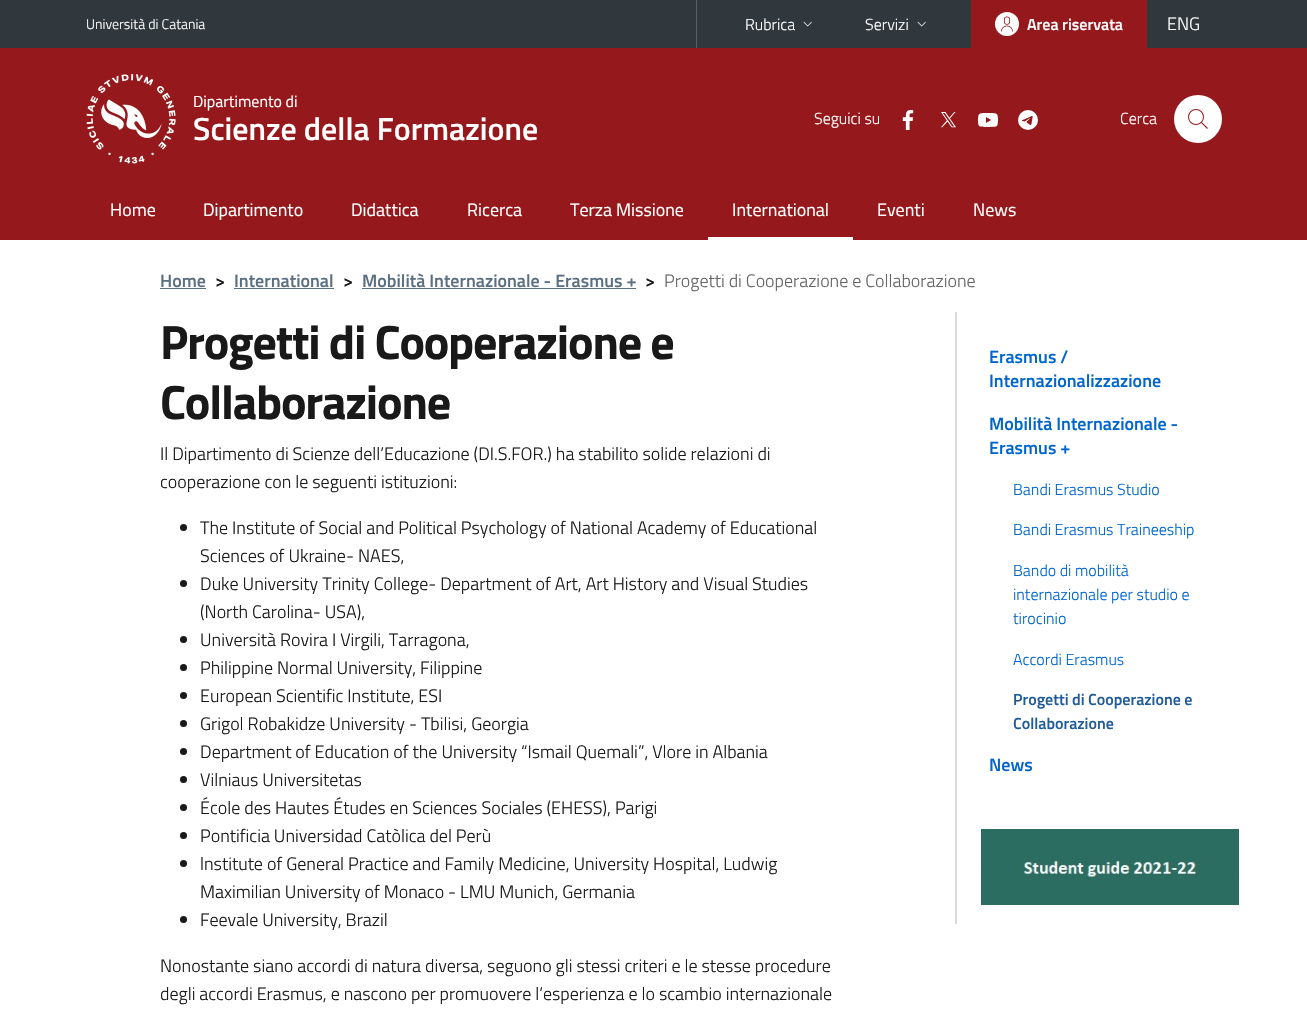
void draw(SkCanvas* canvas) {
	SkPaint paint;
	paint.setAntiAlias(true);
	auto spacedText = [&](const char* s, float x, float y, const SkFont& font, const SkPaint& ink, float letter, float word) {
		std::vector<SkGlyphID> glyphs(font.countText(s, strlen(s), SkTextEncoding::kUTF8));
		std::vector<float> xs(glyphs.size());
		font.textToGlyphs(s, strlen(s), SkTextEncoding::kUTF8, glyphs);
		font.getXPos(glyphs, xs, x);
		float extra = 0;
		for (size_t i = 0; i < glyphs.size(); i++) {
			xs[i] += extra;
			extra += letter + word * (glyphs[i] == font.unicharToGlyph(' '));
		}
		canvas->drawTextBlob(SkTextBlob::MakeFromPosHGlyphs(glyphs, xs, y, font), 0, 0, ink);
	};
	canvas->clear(0xffffffff);
	paint.setColor(0xff30373d);
	canvas->drawRect(SkRect::MakeXYWH(0, 0, 1307, 48), paint);
	SkFont f1(fontMgr->matchFamilyStyle("Titillium Web", SkFontStyle(300, SkFontStyle::kNormal_Width, SkFontStyle::kUpright_Slant)), 14);
	f1.setSubpixel(true);
	paint.setColor(0xffffffff);
	canvas->drawString("Università di Catania", 86, 29, f1, paint);
	paint.setColor(0xff595f64);
	canvas->drawRect(SkRect::MakeXYWH(696, 0, 1, 48), paint);
	SkFont f2(fontMgr->matchFamilyStyle("Titillium Web", SkFontStyle(300, SkFontStyle::kNormal_Width, SkFontStyle::kUpright_Slant)), 16);
	f2.setSubpixel(true);
	paint.setColor(0xffffffff);
	canvas->drawString("Rubrica", 745, 30, f2, paint);
	canvas->drawImageRect(SkImages::DeferredFromEncodedData(SkData::MakeFromFileName("img1.png")), SkRect::MakeXYWH(803, 21, 9, 6), SkSamplingOptions());
	canvas->drawString("Servizi", 865, 30, f2, paint);
	canvas->drawImageRect(SkImages::DeferredFromEncodedData(SkData::MakeFromFileName("img1.png")), SkRect::MakeXYWH(917, 21, 9, 6), SkSamplingOptions());
	paint.setColor(0xff95191c);
	canvas->drawRect(SkRect::MakeXYWH(971, 0, 176, 48), paint);
	paint.setColor(0xffffffff);
	canvas->drawCircle(1007, 24, 12, paint);
	canvas->drawImageRect(SkImages::DeferredFromEncodedData(SkData::MakeFromFileName("img2.png")), SkRect::MakeXYWH(1001, 16, 12, 16), SkSamplingOptions());
	SkFont f3(fontMgr->matchFamilyStyle("Titillium Web", SkFontStyle(600, SkFontStyle::kNormal_Width, SkFontStyle::kUpright_Slant)), 16);
	f3.setSubpixel(true);
	canvas->drawString("Area riservata", 1027, 30, f3, paint);
	SkFont f4(fontMgr->matchFamilyStyle("Titillium Web", SkFontStyle(300, SkFontStyle::kNormal_Width, SkFontStyle::kUpright_Slant)), 18);
	f4.setSubpixel(true);
	canvas->drawString("ENG", 1167, 30, f4, paint);
	paint.setColor(0xff95191c);
	canvas->drawRect(SkRect::MakeXYWH(0, 48, 1307, 192), paint);
	canvas->drawImageRect(SkImages::DeferredFromEncodedData(SkData::MakeFromFileName("img3.png")), SkRect::MakeXYWH(86, 74, 90, 90), SkSamplingOptions());
	SkFont f5(fontMgr->matchFamilyStyle("Titillium Web", SkFontStyle::Normal()), 16);
	f5.setSubpixel(true);
	paint.setColor(0xffffffff);
	canvas->drawString("Dipartimento di", 193, 107, f5, paint);
	SkFont f6(fontMgr->matchFamilyStyle("Titillium Web", SkFontStyle(600, SkFontStyle::kNormal_Width, SkFontStyle::kUpright_Slant)), 32);
	f6.setSubpixel(true);
	canvas->drawString("Scienze della Formazione", 193, 140, f6, paint);
	canvas->drawString("Seguici su", 814, 124, f2, paint);
	canvas->drawImageRect(SkImages::DeferredFromEncodedData(SkData::MakeFromFileName("img4.png")), SkRect::MakeXYWH(902, 110, 12, 20), SkSamplingOptions());
	canvas->drawImageRect(SkImages::DeferredFromEncodedData(SkData::MakeFromFileName("img5.png")), SkRect::MakeXYWH(941, 112, 15, 16), SkSamplingOptions());
	canvas->drawImageRect(SkImages::DeferredFromEncodedData(SkData::MakeFromFileName("img6.png")), SkRect::MakeXYWH(978, 113, 20, 14), SkSamplingOptions());
	canvas->drawImageRect(SkImages::DeferredFromEncodedData(SkData::MakeFromFileName("img7.png")), SkRect::MakeXYWH(1018, 110, 20, 20), SkSamplingOptions());
	canvas->drawString("Cerca", 1120, 124, f2, paint);
	canvas->drawCircle(1198, 119, 24, paint);
	canvas->drawImageRect(SkImages::DeferredFromEncodedData(SkData::MakeFromFileName("img8.png")), SkRect::MakeXYWH(1188, 109, 20, 20), SkSamplingOptions());
	SkFont f7(fontMgr->matchFamilyStyle("Titillium Web", SkFontStyle::Normal()), 18);
	f7.setSubpixel(true);
	canvas->drawString("Home", 110, 216, f7, paint);
	canvas->drawString("Dipartimento", 203, 216, f7, paint);
	canvas->drawString("Didattica", 351, 216, f7, paint);
	canvas->drawString("Ricerca", 467, 216, f7, paint);
	canvas->drawString("Terza Missione", 570, 216, f7, paint);
	canvas->drawRect(SkRect::MakeXYWH(708, 237, 145, 3), paint);
	canvas->drawString("International", 732, 216, f7, paint);
	canvas->drawString("Eventi", 877, 216, f7, paint);
	canvas->drawString("News", 973, 216, f7, paint);
	SkFont f8(fontMgr->matchFamilyStyle("Titillium Web", SkFontStyle(600, SkFontStyle::kNormal_Width, SkFontStyle::kUpright_Slant)), 18);
	f8.setSubpixel(true);
	paint.setColor(0xff5b6f82);
	canvas->drawString("Home", 160, 287, f8, paint);
	canvas->drawRect(SkRect::MakeXYWH(160, 288, 46, 1), paint);
	paint.setColor(0xff19191a);
	canvas->drawString(">", 215, 287, f8, paint);
	paint.setColor(0xff5b6f82);
	canvas->drawString("International", 234, 287, f8, paint);
	canvas->drawRect(SkRect::MakeXYWH(234, 288, 100, 1), paint);
	paint.setColor(0xff19191a);
	canvas->drawString(">", 343, 287, f8, paint);
	paint.setColor(0xff5b6f82);
	canvas->drawString("Mobilità Internazionale - Erasmus +", 362, 287, f8, paint);
	canvas->drawRect(SkRect::MakeXYWH(362, 288, 274, 1), paint);
	paint.setColor(0xff19191a);
	canvas->drawString(">", 645, 287, f8, paint);
	paint.setColor(0xff656566);
	canvas->drawString("Progetti di Cooperazione e Collaborazione", 664, 287, f4, paint);
	SkFont f9(fontMgr->matchFamilyStyle("Titillium Web", SkFontStyle::Bold()), 48);
	f9.setSubpixel(true);
	paint.setColor(0xff19191a);
	spacedText("Progetti di Cooperazione e", 160, 359, f9, paint, -1.2, 0);
	spacedText("Collaborazione", 160, 419, f9, paint, -1.2, 0);
	canvas->drawString("Il Dipartimento di Scienze dell’Educazione (DI.S.FOR.) ha stabilito solide relazioni di", 160, 460, f4, paint);
	canvas->drawString("cooperazione con le seguenti istituzioni:", 160, 488, f4, paint);
	canvas->drawCircle(183.5, 527.5, 3.5, paint);
	canvas->drawString("The Institute of Social and Political Psychology of National Academy of Educational", 200, 534, f4, paint);
	canvas->drawString("Sciences of Ukraine- NAES,", 200, 562, f4, paint);
	canvas->drawCircle(183.5, 583.5, 3.5, paint);
	canvas->drawString("Duke University Trinity College- Department of Art, Art History and Visual Studies", 200, 590, f4, paint);
	canvas->drawString("(North Carolina- USA),", 200, 618, f4, paint);
	canvas->drawCircle(183.5, 639.5, 3.5, paint);
	canvas->drawString("Università Rovira I Virgili, Tarragona,", 200, 646, f4, paint);
	canvas->drawCircle(183.5, 667.5, 3.5, paint);
	canvas->drawString("Philippine Normal University, Filippine", 200, 674, f4, paint);
	canvas->drawCircle(183.5, 695.5, 3.5, paint);
	canvas->drawString("European Scientific Institute, ESI", 200, 702, f4, paint);
	canvas->drawCircle(183.5, 723.5, 3.5, paint);
	canvas->drawString("Grigol Robakidze University - Tbilisi, Georgia", 200, 730, f4, paint);
	canvas->drawCircle(183.5, 751.5, 3.5, paint);
	canvas->drawString("Department of Education of the University “Ismail Quemali”, Vlore in Albania", 200, 758, f4, paint);
	canvas->drawCircle(183.5, 779.5, 3.5, paint);
	canvas->drawString("Vilniaus Universitetas", 200, 786, f4, paint);
	canvas->drawCircle(183.5, 807.5, 3.5, paint);
	canvas->drawString("École des Hautes Études en Sciences Sociales (EHESS), Parigi", 200, 814, f4, paint);
	canvas->drawCircle(183.5, 835.5, 3.5, paint);
	canvas->drawString("Pontificia Universidad Catòlica del Perù", 200, 842, f4, paint);
	canvas->drawCircle(183.5, 863.5, 3.5, paint);
	canvas->drawString("lnstitute of General Practice and Family Medicine, University Hospital, Ludwig", 200, 870, f4, paint);
	canvas->drawString("Maximilian University of Monaco - LMU Munich, Germania", 200, 898, f4, paint);
	canvas->drawCircle(183.5, 919.5, 3.5, paint);
	canvas->drawString("Feevale University, Brazil", 200, 926, f4, paint);
	canvas->drawString("Nonostante siano accordi di natura diversa, seguono gli stessi criteri e le stesse procedure", 160, 972, f4, paint);
	canvas->drawString("degli accordi Erasmus, e nascono per promuovere l’esperienza e lo scambio internazionale", 160, 1000, f4, paint);
	paint.setColor(0xffd9dadb);
	canvas->drawRect(SkRect::MakeXYWH(955, 312, 2, 612), paint);
	paint.setColor(0xff0066cc);
	canvas->drawString("Erasmus /", 989, 363, f8, paint);
	canvas->drawString("Internazionalizzazione", 989, 387, f8, paint);
	canvas->drawString("Mobilità Internazionale -", 989, 430, f8, paint);
	canvas->drawString("Erasmus +", 989, 454, f8, paint);
	canvas->drawString("Bandi Erasmus Studio", 1013, 495, f2, paint);
	canvas->drawString("Bandi Erasmus Traineeship", 1013, 535, f2, paint);
	canvas->drawString("Bando di mobilità", 1013, 576, f2, paint);
	canvas->drawString("internazionale per studio e", 1013, 600, f2, paint);
	canvas->drawString("tirocinio", 1013, 624, f2, paint);
	canvas->drawString("Accordi Erasmus", 1013, 665, f2, paint);
	paint.setColor(0xff1f5c99);
	canvas->drawString("Progetti di Cooperazione e", 1013, 705, f3, paint);
	canvas->drawString("Collaborazione", 1013, 729, f3, paint);
	paint.setColor(0xff0066cc);
	canvas->drawString("News", 989, 771, f8, paint);
	canvas->drawImageRect(SkImages::DeferredFromEncodedData(SkData::MakeFromFileName("img9.png")), SkRect::MakeXYWH(981, 829, 258, 76), SkSamplingOptions());
}
